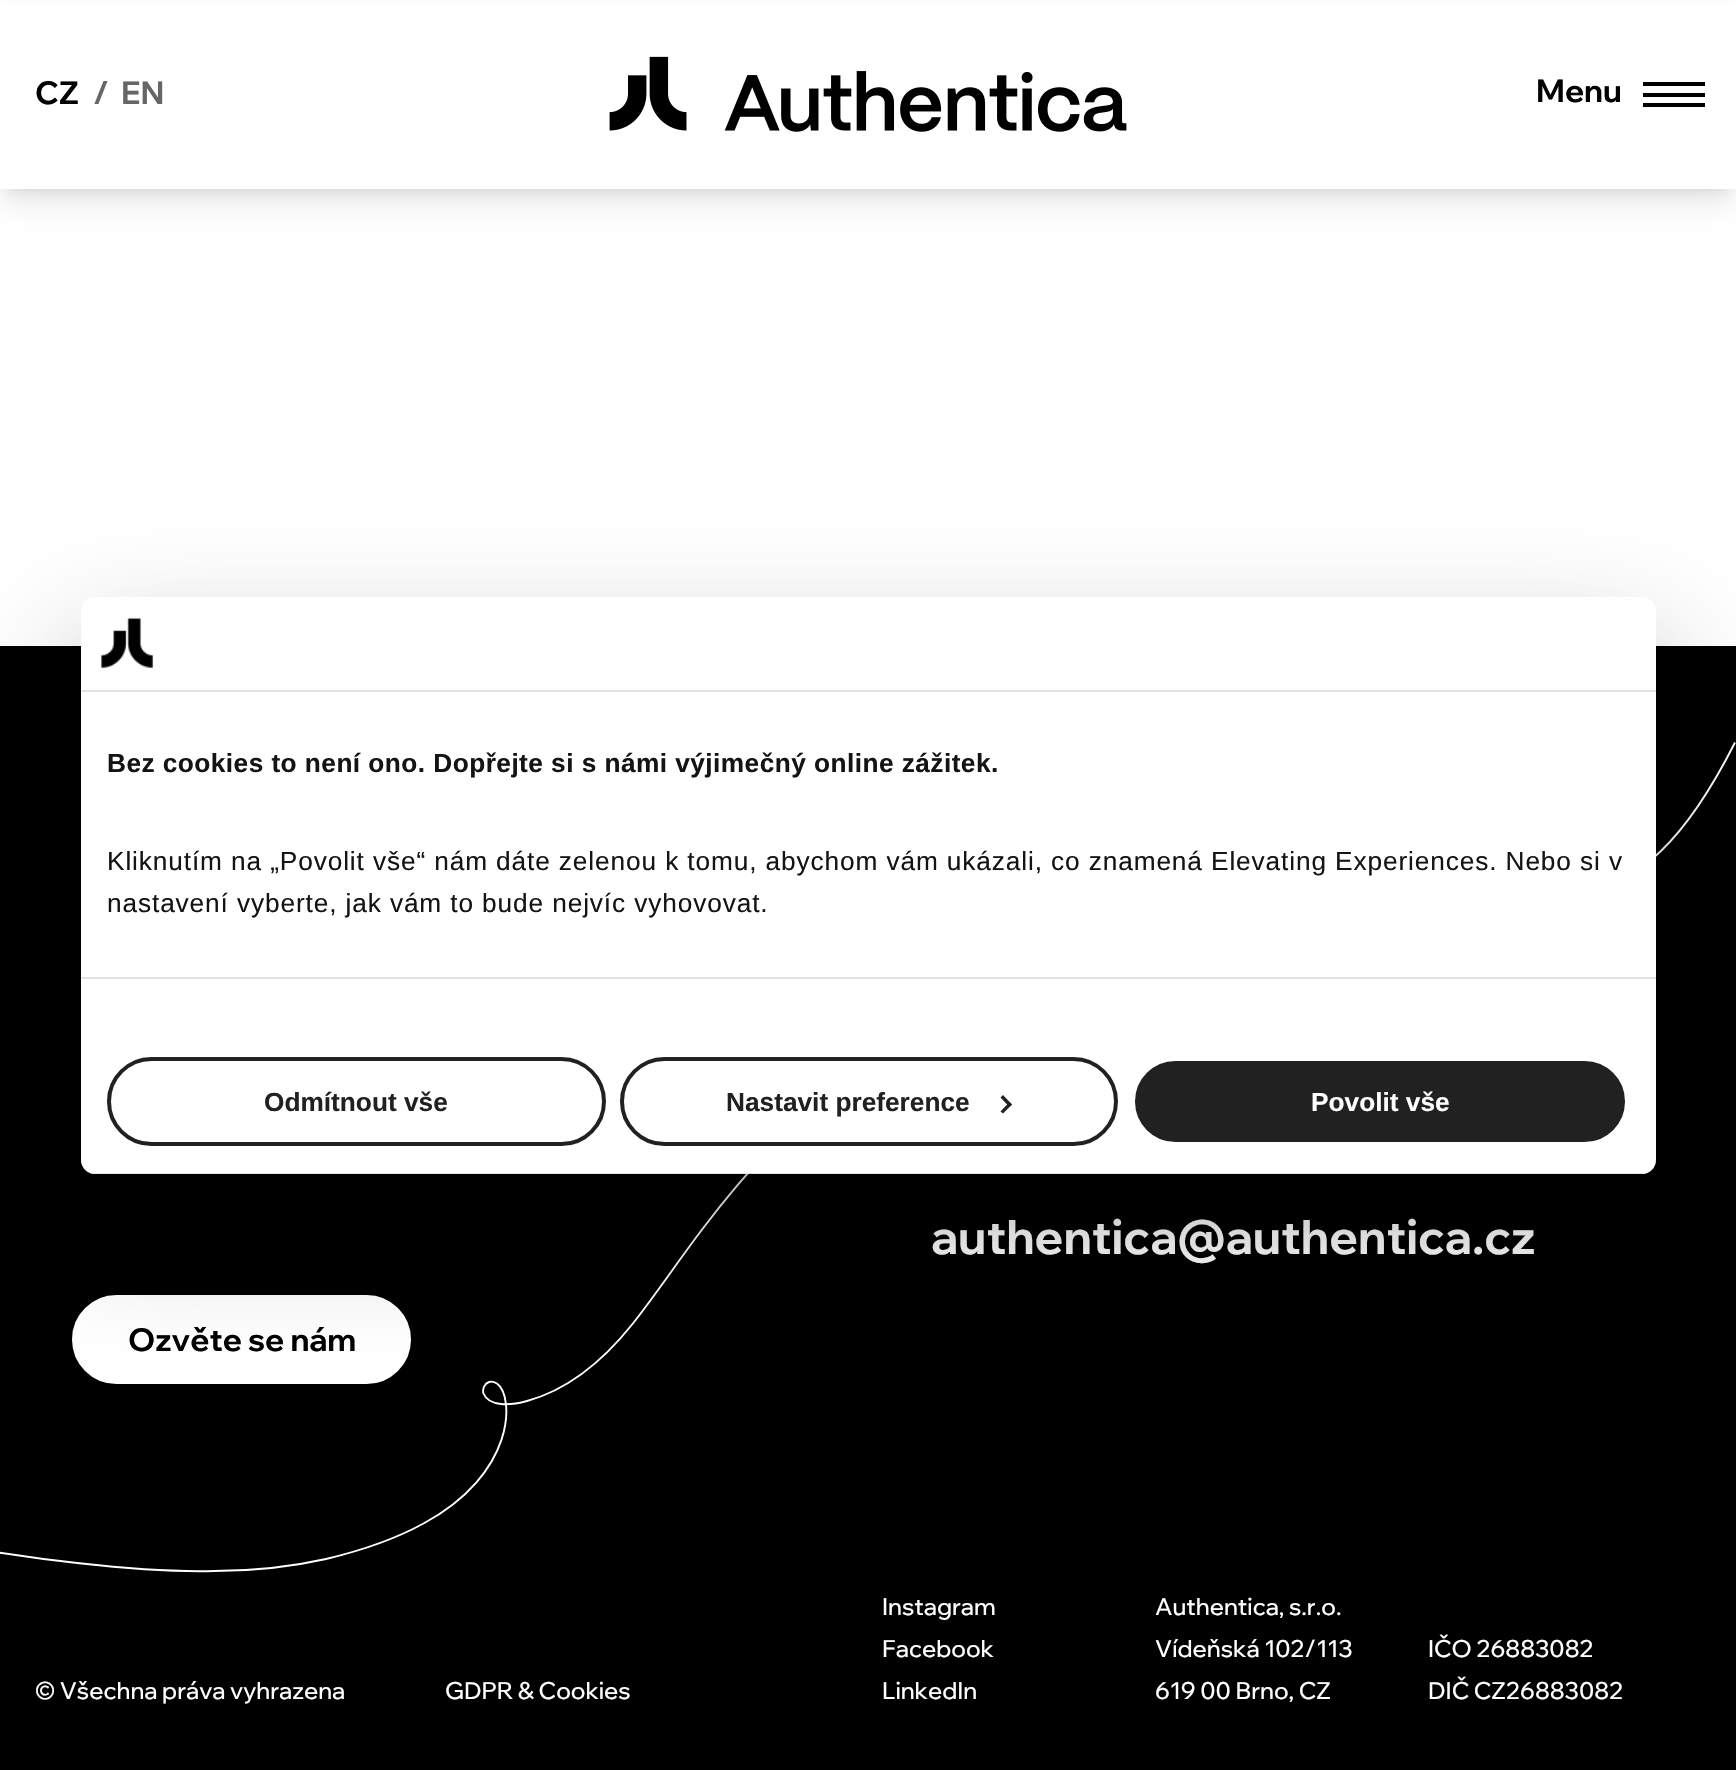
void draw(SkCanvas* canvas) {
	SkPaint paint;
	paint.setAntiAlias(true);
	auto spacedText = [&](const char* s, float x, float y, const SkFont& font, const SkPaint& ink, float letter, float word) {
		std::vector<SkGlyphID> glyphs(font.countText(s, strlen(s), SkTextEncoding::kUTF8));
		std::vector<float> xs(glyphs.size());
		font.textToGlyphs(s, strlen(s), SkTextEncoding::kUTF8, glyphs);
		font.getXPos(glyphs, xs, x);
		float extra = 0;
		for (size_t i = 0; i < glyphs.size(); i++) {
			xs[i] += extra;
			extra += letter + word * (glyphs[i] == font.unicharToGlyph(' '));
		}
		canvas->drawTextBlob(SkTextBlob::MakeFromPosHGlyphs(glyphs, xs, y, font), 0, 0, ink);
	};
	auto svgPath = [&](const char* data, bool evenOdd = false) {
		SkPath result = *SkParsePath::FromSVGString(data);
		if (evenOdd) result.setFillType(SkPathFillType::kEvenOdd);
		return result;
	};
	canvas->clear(0xffffffff);
	paint.setColor(0x1a000000);
	paint.setMaskFilter(SkMaskFilter::MakeBlur(kNormal_SkBlurStyle, 5));
	canvas->drawRect(SkRect::MakeXYWH(7, 14, 1722, 175), paint);
	paint.setMaskFilter(nullptr);
	paint.setMaskFilter(SkMaskFilter::MakeBlur(kNormal_SkBlurStyle, 13));
	canvas->drawRect(SkRect::MakeXYWH(5, 23, 1726, 178), paint);
	paint.setMaskFilter(nullptr);
	paint.setColor(0xffffffff);
	canvas->drawRect(SkRect::MakeXYWH(0, 4, 1736, 185), paint);
	SkFont f1(fontMgr->matchFamilyStyle("Wix Madefor Display", SkFontStyle::Bold()), 31.5);
	f1.setSubpixel(true);
	paint.setColor(0xff000000);
	canvas->drawString("CZ", 35, 104, f1, paint);
	paint.setColor(0xff666666);
	canvas->drawString("/", 93, 104, f1, paint);
	canvas->drawString("EN", 121, 104, f1, paint);
	canvas->drawImageRect(SkImages::DeferredFromEncodedData(SkData::MakeFromFileName("img1.png")), SkRect::MakeXYWH(609, 56, 518, 76), SkSamplingOptions());
	paint.setColor(0xff000000);
	canvas->drawString("Menu", 1536, 102, f1, paint);
	canvas->drawRect(SkRect::MakeXYWH(1643, 82, 62, 4), paint);
	canvas->drawRect(SkRect::MakeXYWH(1643, 93, 62, 4), paint);
	canvas->drawRect(SkRect::MakeXYWH(1643, 103, 62, 4), paint);
	canvas->drawRect(SkRect::MakeXYWH(0, 646, 1736, 1124), paint);
	paint.setStroke(true);
	paint.setStrokeWidth(1.9);
	paint.setColor(0xffffffff);
	canvas->drawPath(svgPath("M1735 742.5C1680.5 850 1638 875 1595 892.5C1335.5 990.5 1076 880.5 838.5 1085C789 1125.5 743 1175.5 704 1227C679 1259.5 657.5 1292.5 632.5 1324C605 1358.5 569 1389.5 527 1401C510.5 1405.5 489 1407 483.5 1393.5C482 1388.5 485 1383.5 489 1382C492 1381 494.5 1382 497 1383.5C514.5 1396.5 516 1473.5 423.5 1523.5C393.5 1540 359.5 1551 326 1559C288.5 1567.5 252 1571 214 1571C135.5 1573 25 1558-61 1542.5"), paint);
	SkFont f2(fontMgr->matchFamilyStyle("Wix Madefor Display", SkFontStyle::Bold()), 47.25);
	f2.setSubpixel(true);
	paint.setStroke(false);
	canvas->drawString("authentica@authentica.cz", 931, 1254, f2, paint);
	canvas->drawRoundRect(SkRect::MakeXYWH(71, 1294, 341, 91), 45.5, 45.5, paint);
	paint.setStroke(true);
	paint.setStrokeWidth(2);
	paint.setColor(0xff000000);
	canvas->drawRoundRect(SkRect::MakeXYWH(71, 1294, 341, 91), 45.5, 45.5, paint);
	paint.setStroke(false);
	canvas->drawString("Ozvěte se nám", 128, 1351, f1, paint);
	SkFont f3(fontMgr->matchFamilyStyle("Wix Madefor Display", SkFontStyle(500, SkFontStyle::kNormal_Width, SkFontStyle::kUpright_Slant)), 23.6);
	f3.setSubpixel(true);
	paint.setColor(0xffffffff);
	canvas->drawString("© Všechna práva vyhrazena", 35, 1699, f3, paint);
	canvas->drawString("GDPR & Cookies", 445, 1699, f3, paint);
	canvas->drawString("Instagram", 882, 1615, f3, paint);
	canvas->drawString("Facebook", 882, 1657, f3, paint);
	canvas->drawString("LinkedIn", 882, 1699, f3, paint);
	canvas->drawString("Authentica, s.r.o.", 1155, 1615, f3, paint);
	canvas->drawString("Vídeňská 102/113", 1155, 1657, f3, paint);
	canvas->drawString("619 00 Brno, CZ", 1155, 1699, f3, paint);
	canvas->drawString("IČO 26883082", 1428, 1657, f3, paint);
	canvas->drawString("DIČ CZ26883082", 1428, 1699, f3, paint);
	paint.setColor(0x4d000000);
	paint.setMaskFilter(SkMaskFilter::MakeBlur(kNormal_SkBlurStyle, 59.5));
	canvas->drawRoundRect(SkRect::MakeXYWH(81, 653, 1575, 577), 14, 14, paint);
	paint.setMaskFilter(nullptr);
	paint.setColor(0xffffffff);
	canvas->drawRoundRect(SkRect::MakeXYWH(81, 597, 1575, 577), 14, 14, paint);
	paint.setColor(0xffe3e3e3);
	canvas->drawRect(SkRect::MakeXYWH(81, 690, 1575, 2), paint);
	canvas->drawImageRect(SkImages::DeferredFromEncodedData(SkData::MakeFromFileName("img2.png")), SkRect::MakeXYWH(100, 617, 54, 52), SkSamplingOptions());
	canvas->drawRect(SkRect::MakeXYWH(81, 977, 1575, 2), paint);
	SkFont f4(fontMgr->matchFamilyStyle("Liberation Sans", SkFontStyle::Bold()), 26.25);
	f4.setSubpixel(true);
	paint.setColor(0xff141414);
	spacedText("Bez cookies to není ono. Dopřejte si s námi výjimečný online zážitek.", 107, 772, f4, paint, 0.45, 0);
	SkFont f5(fontMgr->matchFamilyStyle("Liberation Sans", SkFontStyle::Normal()), 26.25);
	f5.setSubpixel(true);
	spacedText("Kliknutím na „Povolit vše“ nám dáte zelenou k tomu, abychom vám ukázali, co znamená Elevating Experiences. Nebo si v", 107, 870, f5, paint, 0.88, 0);
	spacedText("nastavení vyberte, jak vám to bude nejvíc vyhovovat.", 107, 912, f5, paint, 0.88, 0);
	canvas->save();
	canvas->clipPath(svgPath("M95 597H1642C1649.5 597 1656 603.5 1656 611V1160C1656 1167.5 1649.5 1174 1642 1174H95C87.5 1174 81 1167.5 81 1160V611C81 603.5 87.5 597 95 597Z"), true);
	paint.setColor(0xffe3e3e3);
	canvas->drawRect(SkRect::MakeXYWH(90, 1173, 1557, 1), paint);
	canvas->restore();
	paint.setStroke(true);
	paint.setStrokeWidth(4);
	paint.setColor(0xff212121);
	canvas->drawRoundRect(SkRect::MakeXYWH(109, 1059, 495, 85), 42.5, 42.5, paint);
	paint.setStroke(false);
	canvas->drawString("Odmítnout vše", 264, 1111, f4, paint);
	paint.setStroke(true);
	canvas->drawRoundRect(SkRect::MakeXYWH(622, 1059, 494, 85), 42.5, 42.5, paint);
	paint.setStroke(false);
	canvas->drawString("Nastavit preference", 726, 1111, f4, paint);
	canvas->drawPath(svgPath("M1003 1095L1012 1104.5L1009.5 1107L1000.5 1097.5Z"), paint);
	canvas->drawPath(svgPath("M1009.5 1102L1012 1104.5L1003 1113.5L1000.5 1111.5Z"), paint);
	canvas->drawRoundRect(SkRect::MakeXYWH(1133, 1059, 494, 85), 42.5, 42.5, paint);
	paint.setStroke(true);
	paint.setColor(0xffffffff);
	canvas->drawRoundRect(SkRect::MakeXYWH(1133, 1059, 494, 85), 42.5, 42.5, paint);
	paint.setStroke(false);
	canvas->drawString("Povolit vše", 1311, 1111, f4, paint);
}
